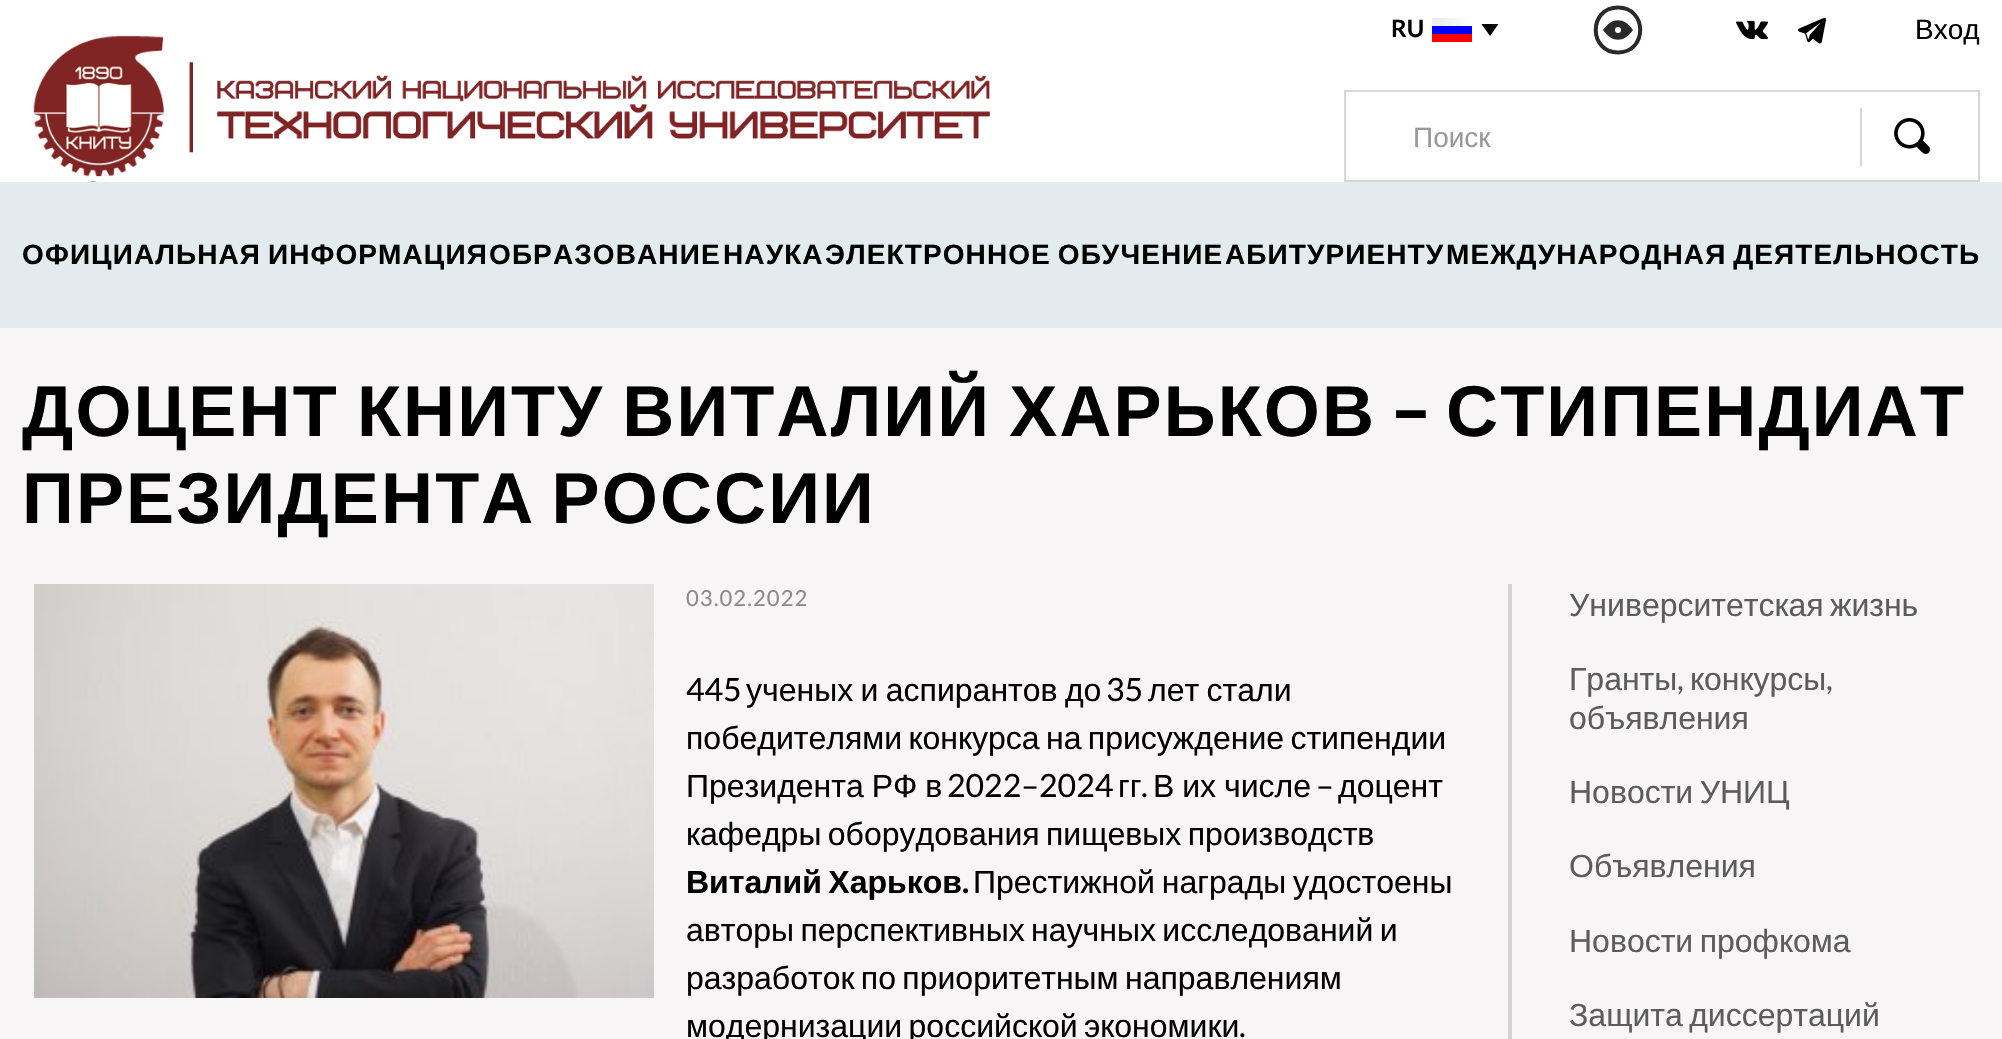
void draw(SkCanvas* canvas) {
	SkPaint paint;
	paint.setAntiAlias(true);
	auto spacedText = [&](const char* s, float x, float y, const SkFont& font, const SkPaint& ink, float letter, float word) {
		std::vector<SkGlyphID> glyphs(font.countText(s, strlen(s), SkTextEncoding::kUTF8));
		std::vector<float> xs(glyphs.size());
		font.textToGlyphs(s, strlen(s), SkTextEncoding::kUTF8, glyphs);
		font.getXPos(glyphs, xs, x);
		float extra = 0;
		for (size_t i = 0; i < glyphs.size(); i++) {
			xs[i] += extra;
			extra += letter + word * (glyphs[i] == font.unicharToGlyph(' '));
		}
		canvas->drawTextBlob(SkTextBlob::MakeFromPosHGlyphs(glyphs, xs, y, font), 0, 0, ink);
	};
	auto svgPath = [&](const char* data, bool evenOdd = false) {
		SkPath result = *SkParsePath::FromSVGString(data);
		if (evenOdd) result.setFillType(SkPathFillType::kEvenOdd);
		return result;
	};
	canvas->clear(0xffffffff);
	canvas->drawImageRect(SkImages::DeferredFromEncodedData(SkData::MakeFromFileName("img1.png")), SkRect::MakeXYWH(33, 35, 957, 147), SkSamplingOptions());
	SkFont f1(fontMgr->matchFamilyStyle("Lato", SkFontStyle::Bold()), 24);
	f1.setSubpixel(true);
	paint.setColor(0xff000000);
	canvas->drawString("RU", 1391, 37, f1, paint);
	paint.setColor(0xfffe0000);
	canvas->drawRect(SkRect::MakeXYWH(1432, 34, 40, 8), paint);
	paint.setColor(0xff0000fe);
	canvas->drawRect(SkRect::MakeXYWH(1432, 26, 40, 8), paint);
	{
		const SkColor colors[] = {0xffeeeff4, 0xffffffff};
		const float stops[] = {0, 1};
		const SkPoint ends[] = {{1442, 26}, {1472, 26}};
		paint.setShader(SkGradientShader::MakeLinear(ends, colors, stops, 2, SkTileMode::kClamp));
		paint.setAlpha(255);
	}
	canvas->drawRect(SkRect::MakeXYWH(1432, 18, 40, 8), paint);
	paint.setShader(nullptr);
	paint.setColor(0xff000000);
	canvas->drawPath(svgPath("M1490 36L1481.5 24H1498.5Z"), paint);
	paint.setStroke(true);
	paint.setStrokeWidth(4);
	paint.setStrokeCap(SkPaint::kRound_Cap);
	paint.setStrokeJoin(SkPaint::kRound_Join);
	paint.setColor(0xff2a2a2a);
	canvas->drawPath(svgPath("M1618 7.5C1588 7.5 1588.5 53 1618.5 52.5C1647.5 52 1647.5 7.5 1618 7.5Z"), paint);
	paint.setStroke(false);
	canvas->drawPath(svgPath("M1633 30C1624 43 1612 43 1603 30C1612 17 1624 17 1633 30Z"), paint);
	paint.setStroke(true);
	paint.setStrokeWidth(6);
	paint.setColor(0xffffffff);
	canvas->drawPath(svgPath("M1618 30H1618"), paint);
	canvas->drawImageRect(SkImages::DeferredFromEncodedData(SkData::MakeFromFileName("img2.png")), SkRect::MakeXYWH(1736, 20, 32, 20), SkSamplingOptions());
	canvas->drawImageRect(SkImages::DeferredFromEncodedData(SkData::MakeFromFileName("img3.png")), SkRect::MakeXYWH(1798, 17, 29, 27), SkSamplingOptions());
	SkFont f2(fontMgr->matchFamilyStyle("Liberation Sans", SkFontStyle::Normal()), 28);
	f2.setSubpixel(true);
	paint.setStroke(false);
	paint.setColor(0xff000000);
	canvas->drawString("Вход", 1915, 39, f2, paint);
	paint.setStroke(true);
	paint.setStrokeWidth(2);
	paint.setStrokeCap(SkPaint::kButt_Cap);
	paint.setStrokeJoin(SkPaint::kMiter_Join);
	paint.setColor(0xffd8d6d6);
	canvas->drawRect(SkRect::MakeXYWH(1345, 91, 634, 90), paint);
	paint.setStroke(false);
	paint.setColor(0xff999999);
	canvas->drawString("Поиск", 1413, 147, f2, paint);
	paint.setColor(0xffd8d6d6);
	canvas->drawRect(SkRect::MakeXYWH(1860, 108, 2, 58), paint);
	canvas->drawImageRect(SkImages::DeferredFromEncodedData(SkData::MakeFromFileName("img4.png")), SkRect::MakeXYWH(1894, 118, 36, 36), SkSamplingOptions());
	paint.setColor(0xffe2ebee);
	canvas->drawRect(SkRect::MakeXYWH(0, 182, 2002, 146), paint);
	SkFont f3(fontMgr->matchFamilyStyle("Liberation Sans", SkFontStyle::Bold()), 28);
	f3.setSubpixel(true);
	paint.setColor(0xff000000);
	spacedText("ОФИЦИАЛЬНАЯ ИНФОРМАЦИЯ", 22, 264, f3, paint, 1.1, -2);
	spacedText("ОБРАЗОВАНИЕ", 489, 264, f3, paint, 1.1, 0);
	spacedText("НАУКА", 723, 264, f3, paint, 1.1, 0);
	spacedText("ЭЛЕКТРОННОЕ ОБУЧЕНИЕ", 825, 264, f3, paint, 1.1, -2);
	spacedText("АБИТУРИЕНТУ", 1225, 264, f3, paint, 1.1, 0);
	spacedText("МЕЖДУНАРОДНАЯ ДЕЯТЕЛЬНОСТЬ", 1446, 264, f3, paint, 1.1, -2);
	paint.setColor(0xfff7f5f5);
	canvas->drawRect(SkRect::MakeXYWH(0, 328, 2002, 711), paint);
	SkFont f4(fontMgr->matchFamilyStyle("Liberation Sans", SkFontStyle::Bold()), 72);
	f4.setSubpixel(true);
	paint.setColor(0xff000000);
	spacedText("ДОЦЕНТ КНИТУ ВИТАЛИЙ ХАРЬКОВ", 22, 436, f4, paint, 2.15, -4);
	SkFont f5(fontMgr->matchFamilyStyle("Lato", SkFontStyle(900, SkFontStyle::kNormal_Width, SkFontStyle::kUpright_Slant)), 72);
	f5.setSubpixel(true);
	spacedText("–", 1390, 436, f5, paint, 2.15, 0);
	spacedText("СТИПЕНДИАТ", 1446, 436, f4, paint, 2.15, 0);
	spacedText("ПРЕЗИДЕНТА РОССИИ", 22, 523, f4, paint, 2.15, -6);
	canvas->drawImageRect(SkImages::DeferredFromEncodedData(SkData::MakeFromFileName("img5.png")), SkRect::MakeXYWH(34, 584, 620, 414), SkSamplingOptions());
	SkFont f6(fontMgr->matchFamilyStyle("Lato", SkFontStyle::Normal()), 22);
	f6.setSubpixel(true);
	paint.setColor(0xff8c8b8b);
	spacedText("03.02.2022", 686, 606, f6, paint, 1.1, 0);
	SkFont f7(fontMgr->matchFamilyStyle("Lato", SkFontStyle::Normal()), 32);
	f7.setSubpixel(true);
	paint.setColor(0xff000000);
	canvas->drawString("445", 686, 701, f7, paint);
	SkFont f8(fontMgr->matchFamilyStyle("Liberation Sans", SkFontStyle::Normal()), 32);
	f8.setSubpixel(true);
	spacedText("ученых и аспирантов до", 746, 701, f8, paint, 0, -1.5);
	canvas->drawString("35", 1106, 701, f7, paint);
	spacedText("лет стали", 1148, 701, f8, paint, 0, -1.5);
	spacedText("победителями конкурса на присуждение стипендии", 686, 749, f8, paint, 0, -2.5);
	spacedText("Президента РФ в", 686, 797, f8, paint, 0, -1);
	canvas->drawString("2022–2024", 947, 797, f7, paint);
	canvas->drawString("гг", 1118, 797, f8, paint);
	spacedText("В их числе", 1153, 797, f8, paint, 0, -1);
	canvas->drawString("–", 1316, 797, f7, paint);
	canvas->drawString("доцент", 1338, 797, f8, paint);
	canvas->drawString(".", 1141, 797, f7, paint);
	spacedText("кафедры оборудования пищевых производств", 686, 845, f8, paint, 0, -2.5);
	SkFont f9(fontMgr->matchFamilyStyle("Liberation Sans", SkFontStyle::Bold()), 32);
	f9.setSubpixel(true);
	spacedText("Виталий Харьков", 686, 893, f9, paint, 0, -2.5);
	SkFont f10(fontMgr->matchFamilyStyle("Lato", SkFontStyle::Bold()), 32);
	f10.setSubpixel(true);
	canvas->drawString(".", 962, 893, f10, paint);
	spacedText("Престижной награды удостоены", 973, 893, f8, paint, 0, -2);
	spacedText("авторы перспективных научных исследований и", 686, 941, f8, paint, 0, -2.5);
	spacedText("разработок по приоритетным направлениям", 686, 989, f8, paint, 0, -2.5);
	spacedText("модернизации российской экономики", 686, 1037, f8, paint, 0, -2.5);
	canvas->drawString(".", 1239, 1037, f7, paint);
	paint.setColor(0xffd3d3d3);
	canvas->drawRect(SkRect::MakeXYWH(1508, 584, 4, 455), paint);
	paint.setColor(0xff5c5c5c);
	spacedText("Университетская жизнь", 1569, 616, f8, paint, 0, -2.5);
	canvas->drawString("Гранты", 1569, 690, f8, paint);
	canvas->drawString(",", 1677, 690, f7, paint);
	canvas->drawString("конкурсы", 1690, 690, f8, paint);
	canvas->drawString(",", 1826, 690, f7, paint);
	canvas->drawString("объявления", 1569, 729, f8, paint);
	spacedText("Новости УНИЦ", 1569, 803, f8, paint, 0, -2.5);
	canvas->drawString("Объявления", 1569, 877, f8, paint);
	spacedText("Новости профкома", 1569, 952, f8, paint, 0, -2.5);
	spacedText("Защита диссертаций", 1569, 1026, f8, paint, 0, -2.5);
}
